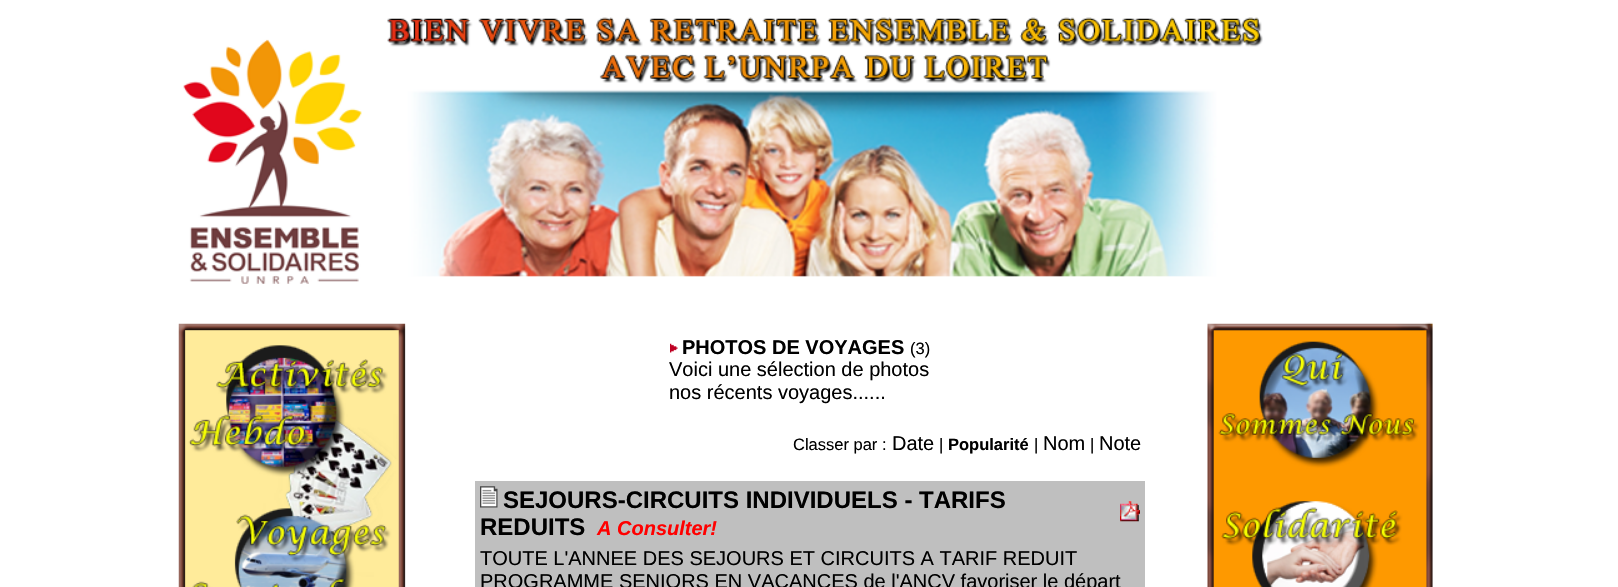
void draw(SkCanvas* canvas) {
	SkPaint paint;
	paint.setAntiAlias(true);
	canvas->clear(0xffffffff);
	canvas->drawImageRect(SkImages::DeferredFromEncodedData(SkData::MakeFromFileName("img1.png")), SkRect::MakeXYWH(183, 17, 1080, 267), SkSamplingOptions());
	canvas->drawImageRect(SkImages::DeferredFromEncodedData(SkData::MakeFromFileName("img2.png")), SkRect::MakeXYWH(178, 323, 228, 264), SkSamplingOptions());
	canvas->drawImageRect(SkImages::DeferredFromEncodedData(SkData::MakeFromFileName("img3.png")), SkRect::MakeXYWH(670, 343, 8, 10), SkSamplingOptions());
	SkFont f1(fontMgr->matchFamilyStyle("Liberation Sans", SkFontStyle::Bold()), 20);
	f1.setSubpixel(true);
	paint.setColor(0xff000000);
	canvas->drawString("PHOTOS DE VOYAGES", 682, 354, f1, paint);
	SkFont f2(fontMgr->matchFamilyStyle("Liberation Sans", SkFontStyle::Normal()), 16.5);
	f2.setSubpixel(true);
	canvas->drawString("(3)", 910, 354, f2, paint);
	SkFont f3(fontMgr->matchFamilyStyle("Liberation Sans", SkFontStyle::Normal()), 20);
	f3.setSubpixel(true);
	canvas->drawString("Voici une sélection de photos", 669, 376, f3, paint);
	canvas->drawString("nos récents voyages......", 669, 399, f3, paint);
	canvas->drawString("Classer par :", 793, 450, f2, paint);
	canvas->drawString("Date", 892, 450, f3, paint);
	canvas->drawString("|", 939, 450, f2, paint);
	SkFont f4(fontMgr->matchFamilyStyle("Liberation Sans", SkFontStyle::Bold()), 16.5);
	f4.setSubpixel(true);
	canvas->drawString("Popularité", 948, 450, f4, paint);
	canvas->drawString("|", 1034, 450, f2, paint);
	canvas->drawString("Nom", 1043, 450, f3, paint);
	canvas->drawString("|", 1090, 450, f2, paint);
	canvas->drawString("Note", 1099, 450, f3, paint);
	paint.setColor(0xffbfbfbf);
	canvas->drawRect(SkRect::MakeXYWH(475, 481, 670, 106), paint);
	canvas->drawImageRect(SkImages::DeferredFromEncodedData(SkData::MakeFromFileName("img4.png")), SkRect::MakeXYWH(480, 486, 18, 22), SkSamplingOptions());
	SkFont f5(fontMgr->matchFamilyStyle("Liberation Sans", SkFontStyle::Bold()), 24);
	f5.setSubpixel(true);
	paint.setColor(0xff000000);
	canvas->drawString("SEJOURS-CIRCUITS INDIVIDUELS - TARIFS", 503, 508, f5, paint);
	canvas->drawString("REDUITS", 480, 535, f5, paint);
	SkFont f6(fontMgr->matchFamilyStyle("Liberation Sans", SkFontStyle::BoldItalic()), 20);
	f6.setSubpixel(true);
	paint.setColor(0xffff0000);
	canvas->drawString("A Consulter!", 597, 535, f6, paint);
	canvas->drawImageRect(SkImages::DeferredFromEncodedData(SkData::MakeFromFileName("img5.png")), SkRect::MakeXYWH(1120, 501, 20, 21), SkSamplingOptions());
	paint.setColor(0xff000000);
	canvas->drawString("TOUTE L'ANNEE DES SEJOURS ET CIRCUITS A TARIF REDUIT", 480, 565, f3, paint);
	canvas->drawString("PROGRAMME SENIORS EN VACANCES de l'ANCV favoriser le départ", 480, 588, f3, paint);
	canvas->drawImageRect(SkImages::DeferredFromEncodedData(SkData::MakeFromFileName("img6.png")), SkRect::MakeXYWH(1207, 322, 226, 265), SkSamplingOptions());
}
